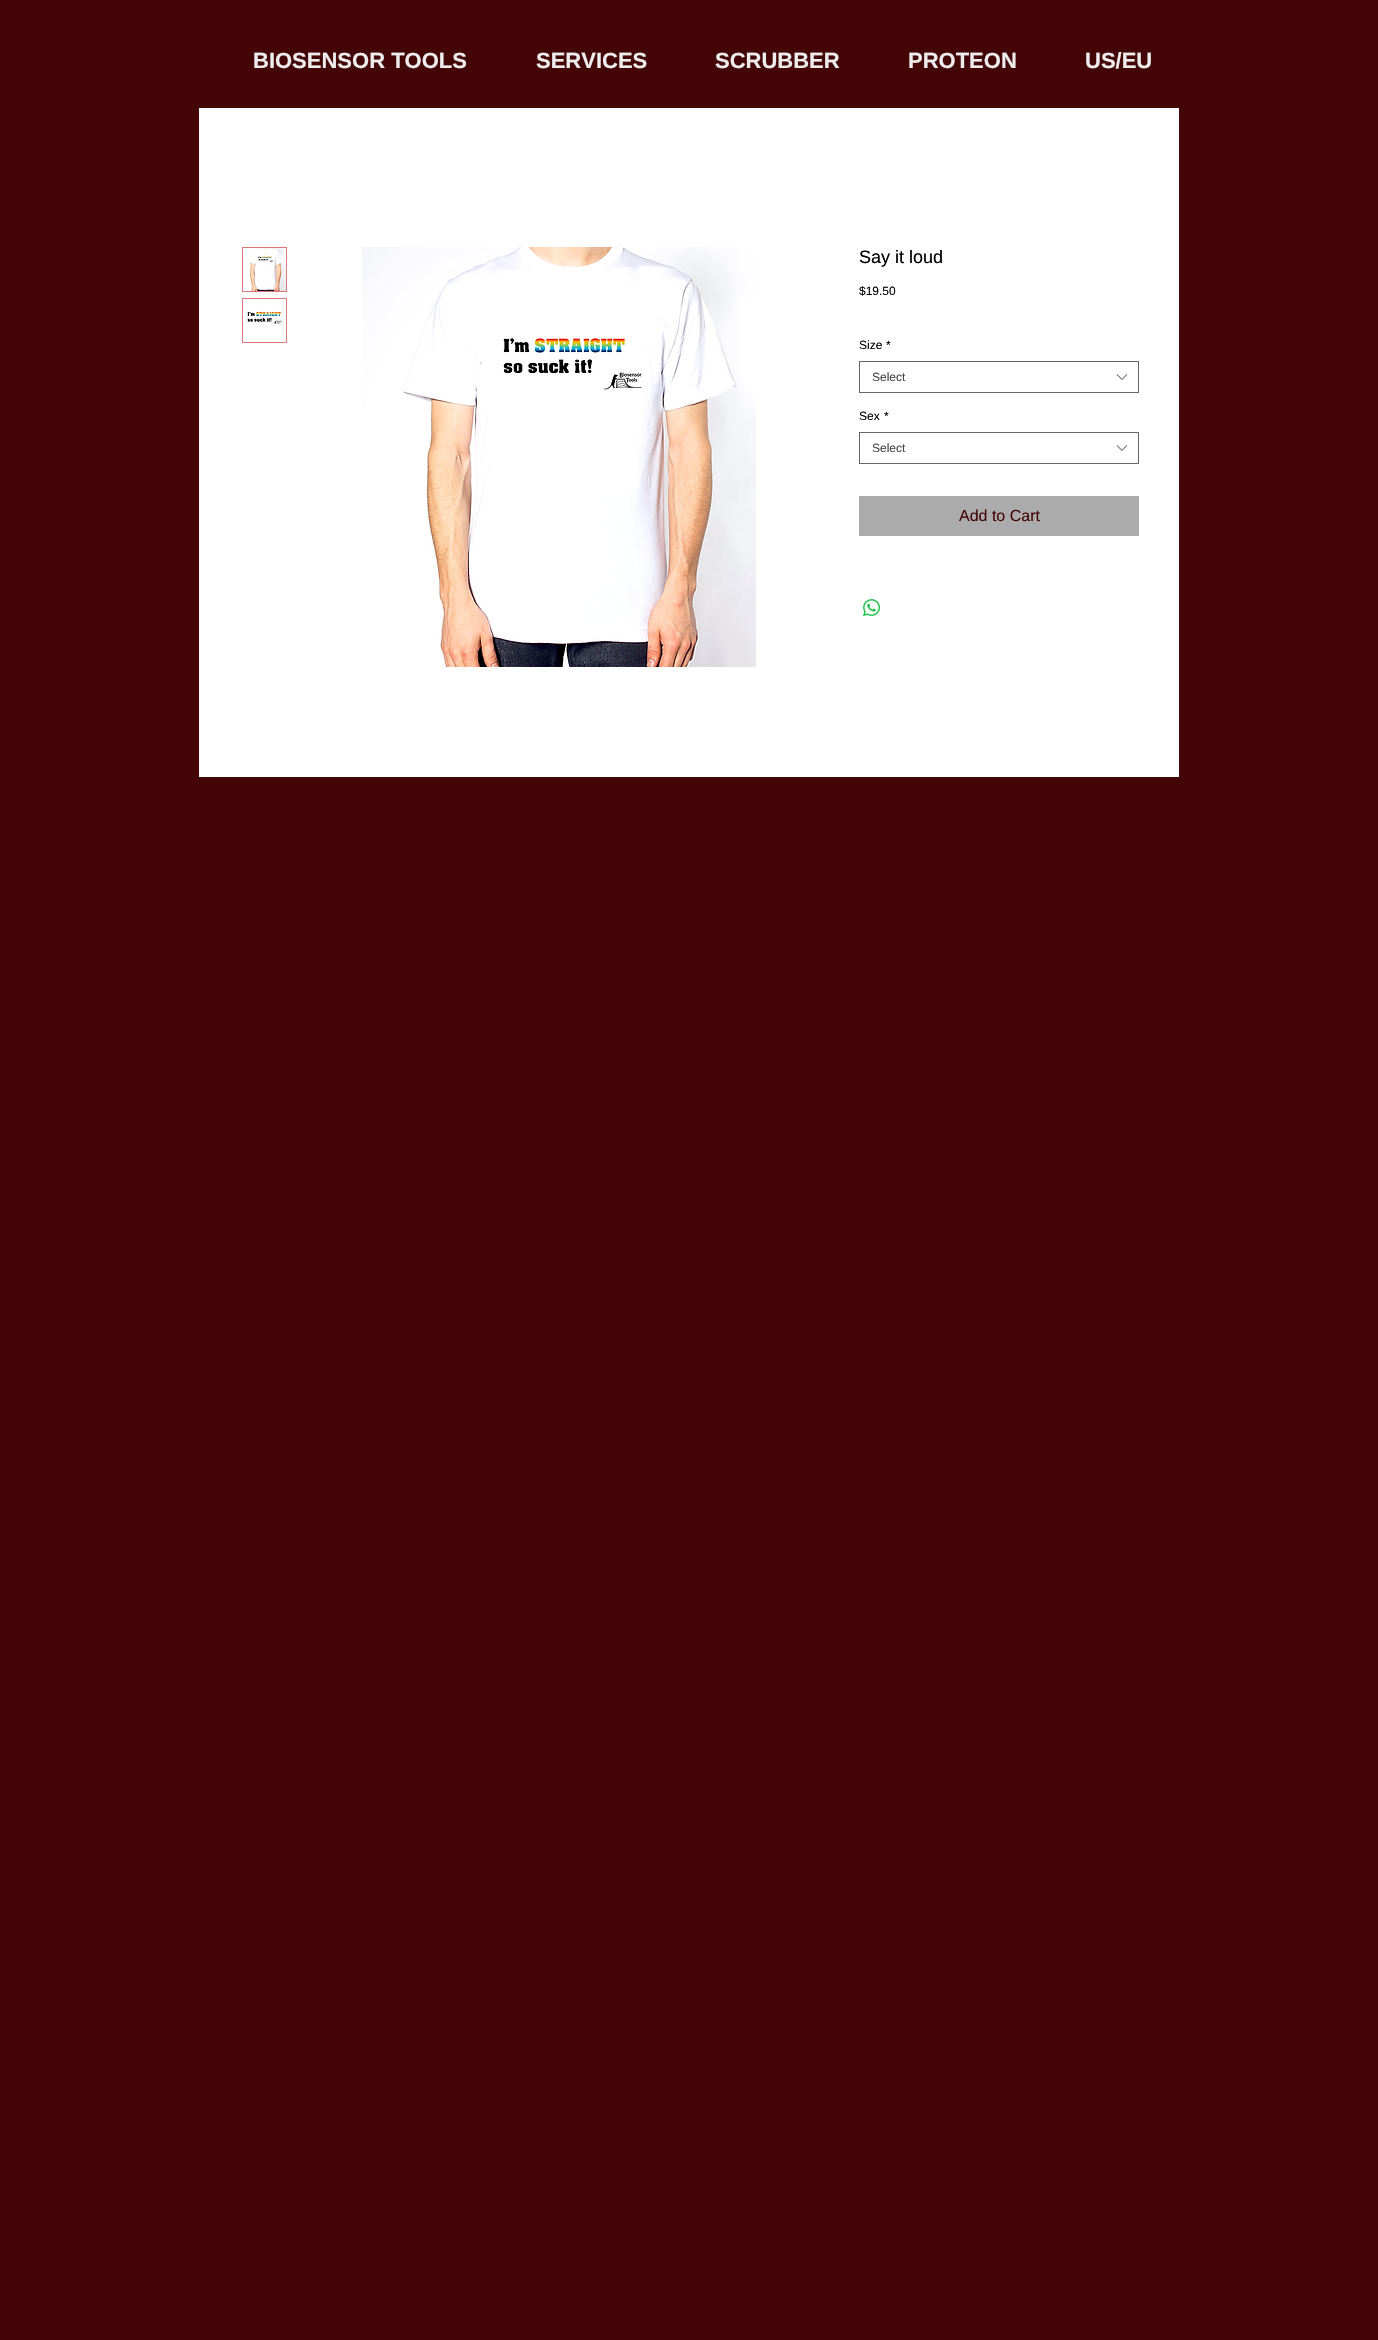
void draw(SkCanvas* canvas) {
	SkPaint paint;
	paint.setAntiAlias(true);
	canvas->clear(0xff440506);
	SkFont f1(fontMgr->matchFamilyStyle("Liberation Sans", SkFontStyle::Bold()), 22);
	f1.setSubpixel(true);
	paint.setColor(0xffededed);
	canvas->drawString("BIOSENSOR TOOLS", 253, 68, f1, paint);
	canvas->drawString("SERVICES", 536, 68, f1, paint);
	canvas->drawString("SCRUBBER", 715, 68, f1, paint);
	canvas->drawString("PROTEON", 908, 68, f1, paint);
	canvas->drawString("US/EU", 1085, 68, f1, paint);
	paint.setColor(0xffffffff);
	canvas->drawRect(SkRect::MakeXYWH(199, 108, 980, 669), paint);
	paint.setColor(0xffdd7779);
	canvas->drawRect(SkRect::MakeXYWH(242, 247, 45, 45), paint);
	canvas->drawImageRect(SkImages::DeferredFromEncodedData(SkData::MakeFromFileName("img1.png")), SkRect::MakeXYWH(243, 248, 43, 43), SkSamplingOptions());
	canvas->drawRect(SkRect::MakeXYWH(242, 298, 45, 45), paint);
	canvas->drawImageRect(SkImages::DeferredFromEncodedData(SkData::MakeFromFileName("img2.png")), SkRect::MakeXYWH(243, 299, 43, 43), SkSamplingOptions());
	canvas->drawImageRect(SkImages::DeferredFromEncodedData(SkData::MakeFromFileName("img3.png")), SkRect::MakeXYWH(362, 247, 394, 420), SkSamplingOptions());
	SkFont f2(fontMgr->matchFamilyStyle("Liberation Sans", SkFontStyle::Normal()), 18);
	f2.setSubpixel(true);
	paint.setColor(0xff000000);
	canvas->drawString("Say it loud", 859, 263, f2, paint);
	SkFont f3(fontMgr->matchFamilyStyle("Liberation Sans", SkFontStyle::Normal()), 12);
	f3.setSubpixel(true);
	canvas->drawString("$19.50", 859, 295, f3, paint);
	canvas->drawString("Size", 859, 349, f3, paint);
	canvas->drawString("*", 886, 349, f3, paint);
	paint.setStroke(true);
	paint.setStrokeWidth(1);
	paint.setColor(0xff666666);
	canvas->drawRect(SkRect::MakeXYWH(859.5, 361.5, 279, 31), paint);
	paint.setStroke(false);
	paint.setColor(0xff444444);
	canvas->drawString("Select", 872, 381, f3, paint);
	canvas->drawImageRect(SkImages::DeferredFromEncodedData(SkData::MakeFromFileName("img4.png")), SkRect::MakeXYWH(1116, 374, 12, 6), SkSamplingOptions());
	paint.setColor(0xff000000);
	canvas->drawString("Sex", 859, 420, f3, paint);
	canvas->drawString("*", 884, 420, f3, paint);
	paint.setStroke(true);
	paint.setColor(0xff666666);
	canvas->drawRect(SkRect::MakeXYWH(859.5, 432.5, 279, 31), paint);
	paint.setStroke(false);
	paint.setColor(0xff444444);
	canvas->drawString("Select", 872, 452, f3, paint);
	canvas->drawImageRect(SkImages::DeferredFromEncodedData(SkData::MakeFromFileName("img4.png")), SkRect::MakeXYWH(1116, 445, 12, 6), SkSamplingOptions());
	paint.setColor(0xffababab);
	canvas->drawRect(SkRect::MakeXYWH(859, 496, 280, 40), paint);
	SkFont f4(fontMgr->matchFamilyStyle("Liberation Sans", SkFontStyle::Normal()), 16);
	f4.setSubpixel(true);
	paint.setColor(0xff440506);
	canvas->drawString("Add to Cart", 959, 521, f4, paint);
	canvas->drawImageRect(SkImages::DeferredFromEncodedData(SkData::MakeFromFileName("img5.png")), SkRect::MakeXYWH(863, 599, 17, 17), SkSamplingOptions());
}
